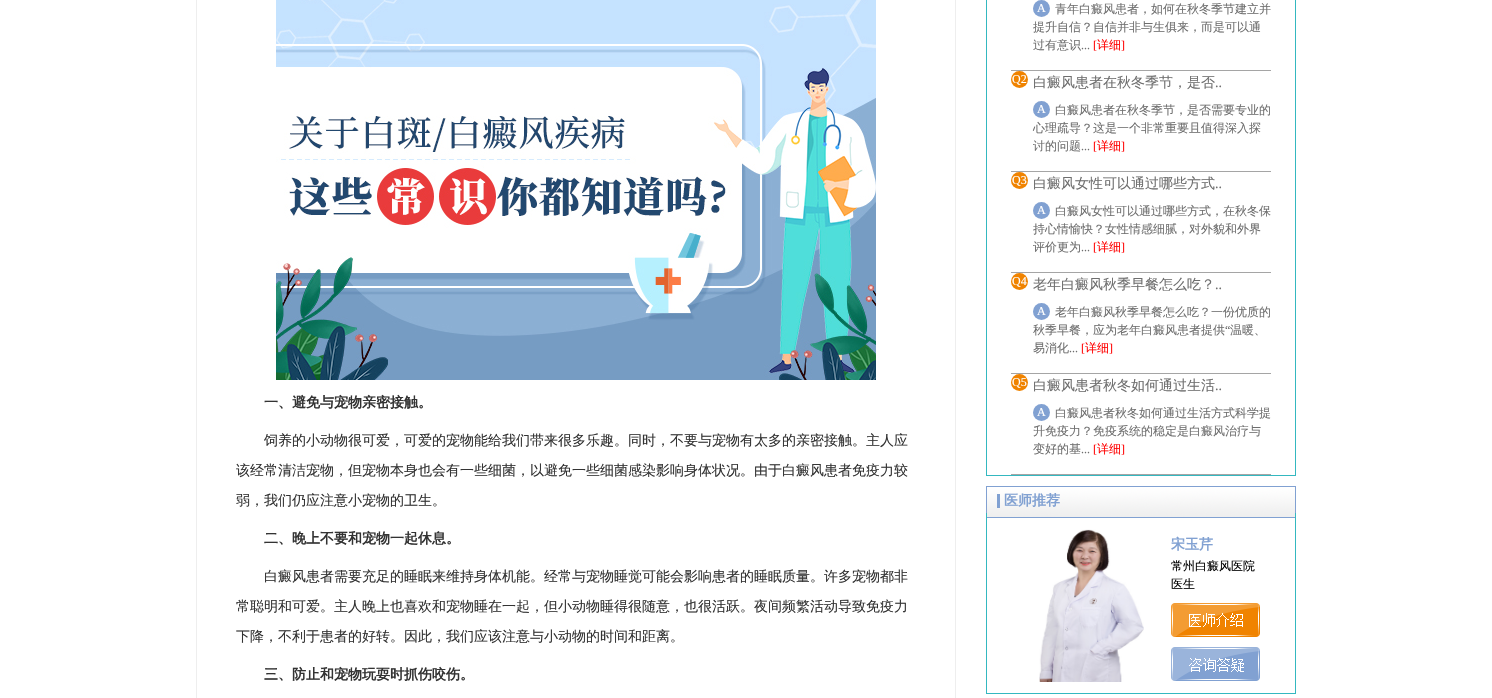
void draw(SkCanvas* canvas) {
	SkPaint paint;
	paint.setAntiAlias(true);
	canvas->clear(0xffffffff);
	paint.setStroke(true);
	paint.setStrokeWidth(1);
	paint.setColor(0xffeeeeee);
	canvas->drawRect(SkRect::MakeXYWH(196.5, -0.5, 759, 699), paint);
	canvas->drawImageRect(SkImages::DeferredFromEncodedData(SkData::MakeFromFileName("img1.png")), SkRect::MakeXYWH(276, 0, 600, 380), SkSamplingOptions());
	SkFont f1(fontMgr->matchFamilyStyle("WenQuanYi Zen Hei", SkFontStyle::Bold()), 14);
	f1.setSubpixel(true);
	paint.setStroke(false);
	paint.setColor(0xff333333);
	canvas->drawString("一、避免与宠物亲密接触。", 264, 407, f1, paint);
	SkFont f2(fontMgr->matchFamilyStyle("WenQuanYi Zen Hei", SkFontStyle(500, SkFontStyle::kNormal_Width, SkFontStyle::kUpright_Slant)), 14);
	f2.setSubpixel(true);
	canvas->drawString("饲养的小动物很可爱，可爱的宠物能给我们带来很多乐趣。同时，不要与宠物有太多的亲密接触。主人应", 264, 445, f2, paint);
	canvas->drawString("该经常清洁宠物，但宠物本身也会有一些细菌，以避免一些细菌感染影响身体状况。由于白癜风患者免疫力较", 236, 475, f2, paint);
	canvas->drawString("弱，我们仍应注意小宠物的卫生。", 236, 505, f2, paint);
	canvas->drawString("二、晚上不要和宠物一起休息。", 264, 543, f1, paint);
	canvas->drawString("白癜风患者需要充足的睡眠来维持身体机能。经常与宠物睡觉可能会影响患者的睡眠质量。许多宠物都非", 264, 581, f2, paint);
	canvas->drawString("常聪明和可爱。主人晚上也喜欢和宠物睡在一起，但小动物睡得很随意，也很活跃。夜间频繁活动导致免疫力", 236, 611, f2, paint);
	canvas->drawString("下降，不利于患者的好转。因此，我们应该注意与小动物的时间和距离。", 236, 641, f2, paint);
	canvas->drawString("三、防止和宠物玩耍时抓伤咬伤。", 264, 679, f1, paint);
	paint.setColor(0xff34b8c0);
	canvas->drawRect(SkRect::MakeXYWH(1295, 0, 1, 476), paint);
	canvas->drawRect(SkRect::MakeXYWH(986, 475, 310, 1), paint);
	canvas->drawRect(SkRect::MakeXYWH(986, 0, 1, 476), paint);
	paint.setColor(0xffa5a5a5);
	canvas->drawRect(SkRect::MakeXYWH(1011, 70, 260, 1), paint);
	paint.setColor(0xff81a1d2);
	canvas->drawCircle(1041.5, 8.5, 8.5, paint);
	SkFont f3(fontMgr->matchFamilyStyle("Liberation Serif", SkFontStyle::Normal()), 12);
	f3.setSubpixel(true);
	paint.setColor(0xffffffff);
	canvas->drawString("A", 1037, 12, f3, paint);
	SkFont f4(fontMgr->matchFamilyStyle("WenQuanYi Zen Hei", SkFontStyle(500, SkFontStyle::kNormal_Width, SkFontStyle::kUpright_Slant)), 12);
	f4.setSubpixel(true);
	paint.setColor(0xff6e6e6e);
	canvas->drawString("青年白癜风患者，如何在秋冬季节建立并", 1055, 13, f4, paint);
	canvas->drawString("提升自信？自信并非与生俱来，而是可以通", 1033, 31, f4, paint);
	canvas->drawString("过有意识", 1033, 49, f4, paint);
	canvas->drawString("...", 1081, 49, f3, paint);
	paint.setColor(0xffff0000);
	canvas->drawString("[", 1093, 49, f3, paint);
	canvas->drawString("详细", 1097, 49, f4, paint);
	canvas->drawString("]", 1121, 49, f3, paint);
	paint.setColor(0xffa5a5a5);
	canvas->drawRect(SkRect::MakeXYWH(1011, 171, 260, 1), paint);
	paint.setColor(0xfff08300);
	canvas->drawCircle(1019.5, 79.5, 8.5, paint);
	paint.setColor(0xffffffff);
	canvas->drawString("Q2", 1012, 83, f3, paint);
	paint.setColor(0xff6e6e6e);
	canvas->drawString("白癜风患者在秋冬季节，是否", 1033, 87, f2, paint);
	SkFont f5(fontMgr->matchFamilyStyle("Liberation Serif", SkFontStyle::Normal()), 14);
	f5.setSubpixel(true);
	canvas->drawString("..", 1215, 87, f5, paint);
	paint.setColor(0xff81a1d2);
	canvas->drawCircle(1041.5, 109.5, 8.5, paint);
	paint.setColor(0xffffffff);
	canvas->drawString("A", 1037, 113, f3, paint);
	paint.setColor(0xff6e6e6e);
	canvas->drawString("白癜风患者在秋冬季节，是否需要专业的", 1055, 114, f4, paint);
	canvas->drawString("心理疏导？这是一个非常重要且值得深入探", 1033, 132, f4, paint);
	canvas->drawString("讨的问题", 1033, 150, f4, paint);
	canvas->drawString("...", 1081, 150, f3, paint);
	paint.setColor(0xffff0000);
	canvas->drawString("[", 1093, 150, f3, paint);
	canvas->drawString("详细", 1097, 150, f4, paint);
	canvas->drawString("]", 1121, 150, f3, paint);
	paint.setColor(0xffa5a5a5);
	canvas->drawRect(SkRect::MakeXYWH(1011, 272, 260, 1), paint);
	paint.setColor(0xfff08300);
	canvas->drawCircle(1019.5, 180.5, 8.5, paint);
	paint.setColor(0xffffffff);
	canvas->drawString("Q3", 1012, 184, f3, paint);
	paint.setColor(0xff6e6e6e);
	canvas->drawString("白癜风女性可以通过哪些方式", 1033, 188, f2, paint);
	canvas->drawString("..", 1215, 188, f5, paint);
	paint.setColor(0xff81a1d2);
	canvas->drawCircle(1041.5, 210.5, 8.5, paint);
	paint.setColor(0xffffffff);
	canvas->drawString("A", 1037, 214, f3, paint);
	paint.setColor(0xff6e6e6e);
	canvas->drawString("白癜风女性可以通过哪些方式，在秋冬保", 1055, 215, f4, paint);
	canvas->drawString("持心情愉快？女性情感细腻，对外貌和外界", 1033, 233, f4, paint);
	canvas->drawString("评价更为", 1033, 251, f4, paint);
	canvas->drawString("...", 1081, 251, f3, paint);
	paint.setColor(0xffff0000);
	canvas->drawString("[", 1093, 251, f3, paint);
	canvas->drawString("详细", 1097, 251, f4, paint);
	canvas->drawString("]", 1121, 251, f3, paint);
	paint.setColor(0xffa5a5a5);
	canvas->drawRect(SkRect::MakeXYWH(1011, 373, 260, 1), paint);
	paint.setColor(0xfff08300);
	canvas->drawCircle(1019.5, 281.5, 8.5, paint);
	paint.setColor(0xffffffff);
	canvas->drawString("Q4", 1012, 285, f3, paint);
	paint.setColor(0xff6e6e6e);
	canvas->drawString("老年白癜风秋季早餐怎么吃？", 1033, 289, f2, paint);
	canvas->drawString("..", 1215, 289, f5, paint);
	paint.setColor(0xff81a1d2);
	canvas->drawCircle(1041.5, 311.5, 8.5, paint);
	paint.setColor(0xffffffff);
	canvas->drawString("A", 1037, 315, f3, paint);
	paint.setColor(0xff6e6e6e);
	canvas->drawString("老年白癜风秋季早餐怎么吃？一份优质的", 1055, 316, f4, paint);
	canvas->drawString("秋季早餐，应为老年白癜风患者提供", 1033, 334, f4, paint);
	canvas->drawString("“", 1225, 334, f3, paint);
	canvas->drawString("温暖、", 1230, 334, f4, paint);
	canvas->drawString("易消化", 1033, 352, f4, paint);
	canvas->drawString("...", 1069, 352, f3, paint);
	paint.setColor(0xffff0000);
	canvas->drawString("[", 1081, 352, f3, paint);
	canvas->drawString("详细", 1085, 352, f4, paint);
	canvas->drawString("]", 1109, 352, f3, paint);
	paint.setColor(0xffa5a5a5);
	canvas->drawRect(SkRect::MakeXYWH(1011, 474, 260, 1), paint);
	paint.setColor(0xfff08300);
	canvas->drawCircle(1019.5, 382.5, 8.5, paint);
	paint.setColor(0xffffffff);
	canvas->drawString("Q5", 1012, 386, f3, paint);
	paint.setColor(0xff6e6e6e);
	canvas->drawString("白癜风患者秋冬如何通过生活", 1033, 390, f2, paint);
	canvas->drawString("..", 1215, 390, f5, paint);
	paint.setColor(0xff81a1d2);
	canvas->drawCircle(1041.5, 412.5, 8.5, paint);
	paint.setColor(0xffffffff);
	canvas->drawString("A", 1037, 416, f3, paint);
	paint.setColor(0xff6e6e6e);
	canvas->drawString("白癜风患者秋冬如何通过生活方式科学提", 1055, 417, f4, paint);
	canvas->drawString("升免疫力？免疫系统的稳定是白癜风治疗与", 1033, 435, f4, paint);
	canvas->drawString("变好的基", 1033, 453, f4, paint);
	canvas->drawString("...", 1081, 453, f3, paint);
	paint.setColor(0xffff0000);
	canvas->drawString("[", 1093, 453, f3, paint);
	canvas->drawString("详细", 1097, 453, f4, paint);
	canvas->drawString("]", 1121, 453, f3, paint);
	canvas->drawImageRect(SkImages::DeferredFromEncodedData(SkData::MakeFromFileName("img2.png")), SkRect::MakeXYWH(986, 486, 310, 32), SkSamplingOptions());
	paint.setColor(0xff81a1d2);
	canvas->drawString("医师推荐", 1004, 505, f1, paint);
	paint.setColor(0xff34b8c0);
	canvas->drawRect(SkRect::MakeXYWH(1295, 513, 1, 181), paint);
	canvas->drawRect(SkRect::MakeXYWH(986, 693, 310, 1), paint);
	canvas->drawRect(SkRect::MakeXYWH(986, 513, 1, 181), paint);
	canvas->drawImageRect(SkImages::DeferredFromEncodedData(SkData::MakeFromFileName("img3.png")), SkRect::MakeXYWH(1039, 529, 105, 153), SkSamplingOptions());
	paint.setColor(0xff81a1d2);
	canvas->drawString("宋玉芹", 1171, 549, f1, paint);
	paint.setColor(0xff000000);
	canvas->drawString("常州白癜风医院", 1171, 570, f4, paint);
	canvas->drawString("医生", 1171, 588, f4, paint);
	canvas->drawImageRect(SkImages::DeferredFromEncodedData(SkData::MakeFromFileName("img4.png")), SkRect::MakeXYWH(1171, 603, 89, 34), SkSamplingOptions());
	canvas->drawImageRect(SkImages::DeferredFromEncodedData(SkData::MakeFromFileName("img5.png")), SkRect::MakeXYWH(1171, 647, 89, 34), SkSamplingOptions());
}
